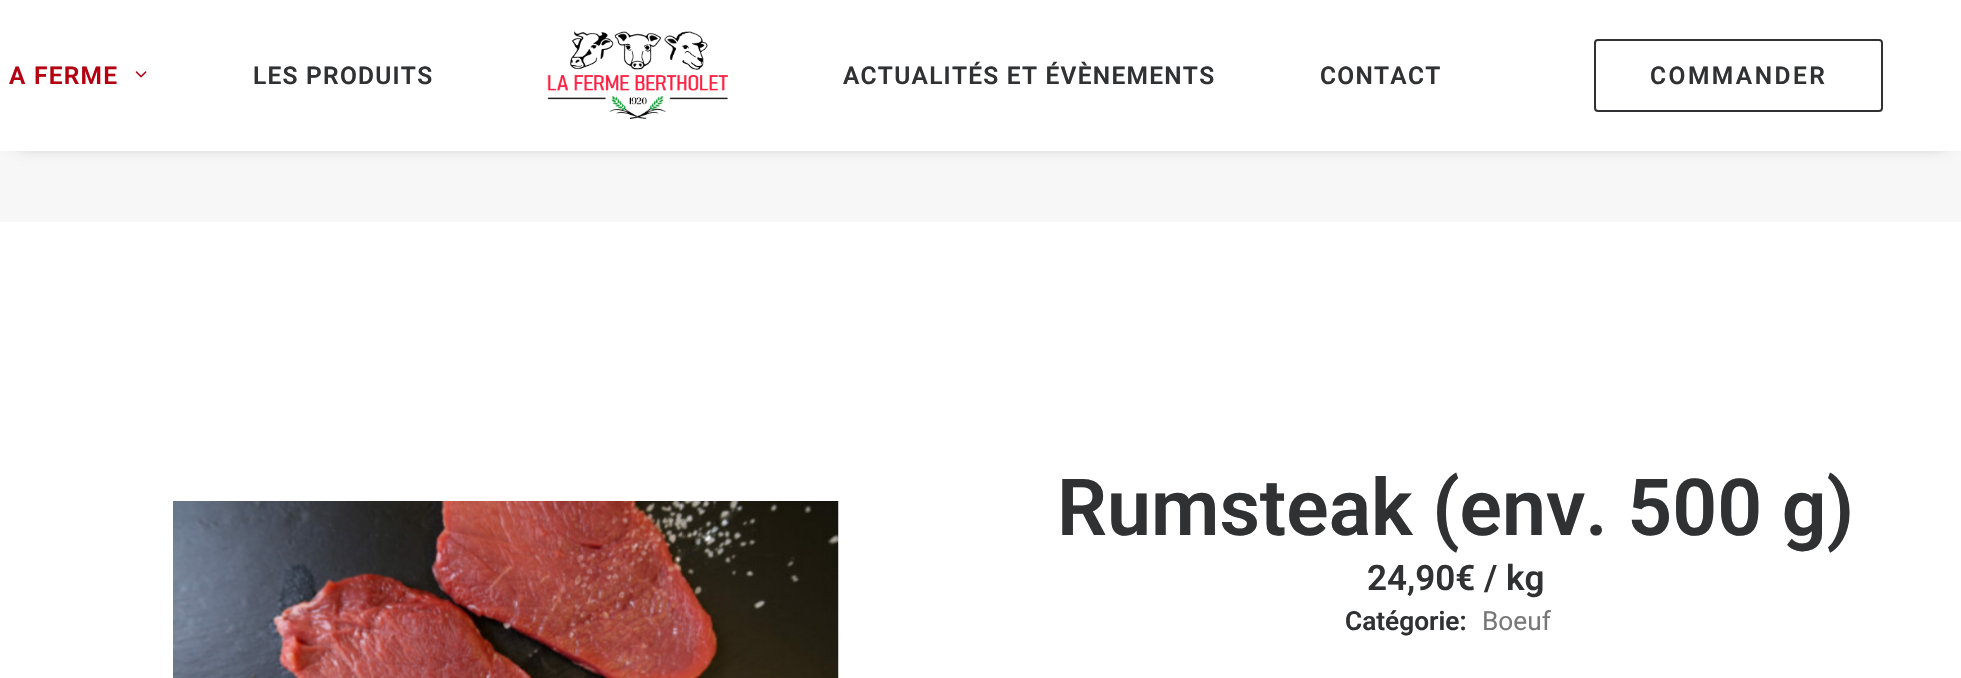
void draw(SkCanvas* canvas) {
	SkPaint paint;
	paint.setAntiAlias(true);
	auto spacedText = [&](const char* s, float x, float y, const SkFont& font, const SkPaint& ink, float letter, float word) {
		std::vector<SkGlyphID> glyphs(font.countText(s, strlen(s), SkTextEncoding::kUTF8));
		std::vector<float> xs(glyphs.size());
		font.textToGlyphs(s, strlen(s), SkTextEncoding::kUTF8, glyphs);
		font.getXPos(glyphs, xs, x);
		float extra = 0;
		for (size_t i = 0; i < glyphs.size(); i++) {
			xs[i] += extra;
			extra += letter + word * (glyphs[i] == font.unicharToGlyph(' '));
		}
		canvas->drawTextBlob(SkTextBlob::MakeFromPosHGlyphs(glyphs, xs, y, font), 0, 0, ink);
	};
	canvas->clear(0xfff7f7f7);
	paint.setColor(0x99000000);
	paint.setMaskFilter(SkMaskFilter::MakeBlur(kNormal_SkBlurStyle, 9));
	canvas->drawRect(SkRect::MakeXYWH(18, 25, 1926, 115), paint);
	paint.setMaskFilter(nullptr);
	paint.setColor(0xffffffff);
	canvas->drawRect(SkRect::MakeXYWH(0, 0, 1961, 151), paint);
	SkFont f1(fontMgr->matchFamilyStyle("Roboto", SkFontStyle(600, SkFontStyle::kNormal_Width, SkFontStyle::kUpright_Slant)), 24.5);
	f1.setSubpixel(true);
	paint.setColor(0xffb40010);
	spacedText("A FERME", 9, 84, f1, paint, 1.25, 0);
	canvas->drawImageRect(SkImages::DeferredFromEncodedData(SkData::MakeFromFileName("img1.png")), SkRect::MakeXYWH(135, 71, 12, 7), SkSamplingOptions());
	paint.setColor(0xff303133);
	spacedText("LES PRODUITS", 253, 84, f1, paint, 1.25, 0);
	canvas->drawImageRect(SkImages::DeferredFromEncodedData(SkData::MakeFromFileName("img2.png")), SkRect::MakeXYWH(547, 31, 181, 88), SkSamplingOptions());
	spacedText("ACTUALITÉS ET ÉVÈNEMENTS", 843, 84, f1, paint, 1.25, 0);
	spacedText("CONTACT", 1320, 84, f1, paint, 1.25, 0);
	paint.setStroke(true);
	paint.setStrokeWidth(2);
	canvas->drawRoundRect(SkRect::MakeXYWH(1595, 40, 287, 71), 3, 3, paint);
	paint.setStroke(false);
	spacedText("COMMANDER", 1650, 84, f1, paint, 2.5, 0);
	paint.setColor(0xffffffff);
	canvas->drawRect(SkRect::MakeXYWH(0, 222, 1961, 456), paint);
	canvas->drawImageRect(SkImages::DeferredFromEncodedData(SkData::MakeFromFileName("img3.png")), SkRect::MakeXYWH(173, 501, 666, 177), SkSamplingOptions());
	SkFont f2(fontMgr->matchFamilyStyle("Roboto", SkFontStyle(600, SkFontStyle::kNormal_Width, SkFontStyle::kUpright_Slant)), 78.75);
	f2.setSubpixel(true);
	paint.setColor(0xff303133);
	canvas->drawString("Rumsteak (env. 500 g)", 1057, 535, f2, paint);
	SkFont f3(fontMgr->matchFamilyStyle("Roboto", SkFontStyle(600, SkFontStyle::kNormal_Width, SkFontStyle::kUpright_Slant)), 35);
	f3.setSubpixel(true);
	canvas->drawString("24,90€ / kg", 1367, 590, f3, paint);
	SkFont f4(fontMgr->matchFamilyStyle("Roboto", SkFontStyle(600, SkFontStyle::kNormal_Width, SkFontStyle::kUpright_Slant)), 26.25);
	f4.setSubpixel(true);
	canvas->drawString("Catégorie:", 1345, 630, f4, paint);
	SkFont f5(fontMgr->matchFamilyStyle("Roboto", SkFontStyle::Normal()), 26.25);
	f5.setSubpixel(true);
	paint.setColor(0xff777777);
	canvas->drawString("Boeuf", 1482, 630, f5, paint);
}
